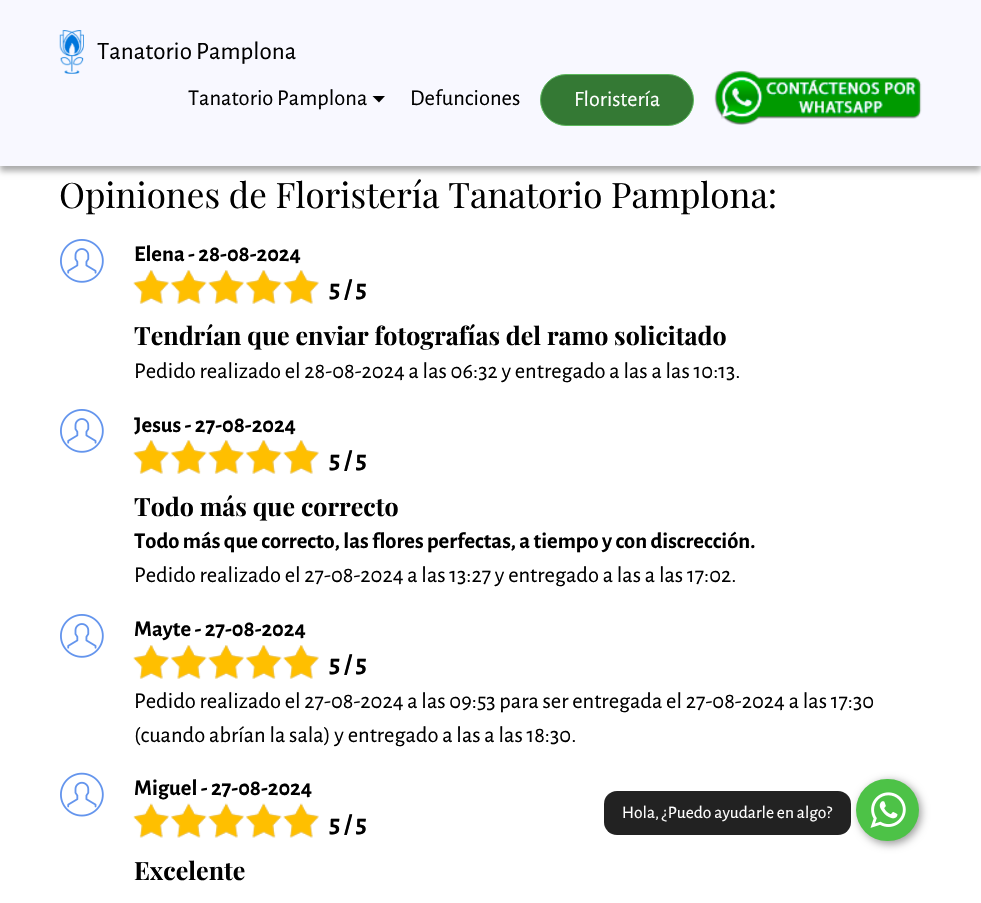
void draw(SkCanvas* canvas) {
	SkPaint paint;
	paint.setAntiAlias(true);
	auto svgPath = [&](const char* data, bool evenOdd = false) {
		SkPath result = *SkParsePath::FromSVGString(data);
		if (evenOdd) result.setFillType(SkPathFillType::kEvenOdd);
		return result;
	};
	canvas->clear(0xffffffff);
	paint.setColor(0xffaaaaaa);
	paint.setMaskFilter(SkMaskFilter::MakeBlur(kNormal_SkBlurStyle, 3));
	canvas->drawRect(SkRect::MakeXYWH(0, 109, 981, 62), paint);
	paint.setMaskFilter(nullptr);
	paint.setColor(0xfff8f8ff);
	canvas->drawRect(SkRect::MakeXYWH(0, 0, 981, 166), paint);
	canvas->drawImageRect(SkImages::DeferredFromEncodedData(SkData::MakeFromFileName("img1.png")), SkRect::MakeXYWH(59, 30, 25, 44), SkSamplingOptions());
	SkFont f1(fontMgr->matchFamilyStyle("Alegreya Sans", SkFontStyle::Normal()), 25);
	f1.setSubpixel(true);
	paint.setColor(0xff000000);
	canvas->drawString("Tanatorio Pamplona", 97, 59, f1, paint);
	SkFont f2(fontMgr->matchFamilyStyle("Alegreya Sans", SkFontStyle::Normal()), 22.5);
	f2.setSubpixel(true);
	canvas->drawString("Tanatorio Pamplona", 188, 105, f2, paint);
	canvas->drawPath(svgPath("M372.5 96H385L379 102.5Z"), paint);
	canvas->drawString("Defunciones", 410, 105, f2, paint);
	paint.setColor(0xff347934);
	canvas->drawRoundRect(SkRect::MakeXYWH(540.5, 74.5, 153, 51), 25.5, 25.5, paint);
	paint.setStroke(true);
	paint.setStrokeWidth(1);
	paint.setColor(0xff5cb85c);
	canvas->drawRoundRect(SkRect::MakeXYWH(540.5, 74.5, 153, 51), 25.5, 25.5, paint);
	SkFont f3(fontMgr->matchFamilyStyle("Alegreya Sans", SkFontStyle::Normal()), 22);
	f3.setSubpixel(true);
	paint.setStroke(false);
	paint.setColor(0xffffffff);
	canvas->drawString("Floristería", 574, 106, f3, paint);
	canvas->drawImageRect(SkImages::DeferredFromEncodedData(SkData::MakeFromFileName("img2.png")), SkRect::MakeXYWH(714, 70, 208, 55), SkSamplingOptions());
	SkFont f4(fontMgr->matchFamilyStyle("Playfair Display", SkFontStyle::Normal()), 35);
	f4.setSubpixel(true);
	paint.setColor(0xff000000);
	canvas->drawString("Opiniones de Floristería Tanatorio Pamplona:", 59, 208, f4, paint);
	canvas->drawImageRect(SkImages::DeferredFromEncodedData(SkData::MakeFromFileName("img3.png")), SkRect::MakeXYWH(60, 239, 44, 44), SkSamplingOptions());
	SkFont f5(fontMgr->matchFamilyStyle("Alegreya Sans", SkFontStyle::Bold()), 22.5);
	f5.setSubpixel(true);
	canvas->drawString("Elena - 28-08-2024", 134, 261, f5, paint);
	canvas->drawImageRect(SkImages::DeferredFromEncodedData(SkData::MakeFromFileName("img4.png")), SkRect::MakeXYWH(133, 270, 186, 34), SkSamplingOptions());
	canvas->drawImageRect(SkImages::DeferredFromEncodedData(SkData::MakeFromFileName("img5.png")), SkRect::MakeXYWH(133, 270, 186, 34), SkSamplingOptions());
	SkFont f6(fontMgr->matchFamilyStyle("Alegreya Sans", SkFontStyle::Bold()), 26);
	f6.setSubpixel(true);
	canvas->drawString("5 / 5", 329, 297, f6, paint);
	SkFont f7(fontMgr->matchFamilyStyle("Playfair Display", SkFontStyle::Bold()), 25);
	f7.setSubpixel(true);
	canvas->drawString("Tendrían que enviar fotografías del ramo solicitado", 134, 345, f7, paint);
	canvas->drawString("Pedido realizado el 28-08-2024 a las 06:32 y entregado a las a las 10:13.", 134, 378, f2, paint);
	canvas->drawImageRect(SkImages::DeferredFromEncodedData(SkData::MakeFromFileName("img3.png")), SkRect::MakeXYWH(60, 409, 44, 44), SkSamplingOptions());
	canvas->drawString("Jesus - 27-08-2024", 134, 432, f5, paint);
	canvas->drawImageRect(SkImages::DeferredFromEncodedData(SkData::MakeFromFileName("img4.png")), SkRect::MakeXYWH(133, 440, 186, 34), SkSamplingOptions());
	canvas->drawImageRect(SkImages::DeferredFromEncodedData(SkData::MakeFromFileName("img5.png")), SkRect::MakeXYWH(133, 440, 186, 34), SkSamplingOptions());
	canvas->drawString("5 / 5", 329, 468, f6, paint);
	canvas->drawString("Todo más que correcto", 134, 516, f7, paint);
	canvas->drawString("Todo más que correcto, las flores perfectas, a tiempo y con discrección.", 134, 548, f5, paint);
	canvas->drawString("Pedido realizado el 27-08-2024 a las 13:27 y entregado a las a las 17:02.", 134, 582, f2, paint);
	canvas->drawImageRect(SkImages::DeferredFromEncodedData(SkData::MakeFromFileName("img3.png")), SkRect::MakeXYWH(60, 614, 44, 44), SkSamplingOptions());
	canvas->drawString("Mayte - 27-08-2024", 134, 636, f5, paint);
	canvas->drawImageRect(SkImages::DeferredFromEncodedData(SkData::MakeFromFileName("img4.png")), SkRect::MakeXYWH(133, 645, 186, 34), SkSamplingOptions());
	canvas->drawImageRect(SkImages::DeferredFromEncodedData(SkData::MakeFromFileName("img5.png")), SkRect::MakeXYWH(133, 645, 186, 34), SkSamplingOptions());
	canvas->drawString("5 / 5", 329, 672, f6, paint);
	canvas->drawString("Pedido realizado el 27-08-2024 a las 09:53 para ser entregada el 27-08-2024 a las 17:30", 134, 708, f2, paint);
	canvas->drawString("(cuando abrían la sala) y entregado a las a las 18:30.", 134, 742, f2, paint);
	canvas->drawImageRect(SkImages::DeferredFromEncodedData(SkData::MakeFromFileName("img6.png")), SkRect::MakeXYWH(60, 772, 44, 45), SkSamplingOptions());
	canvas->drawString("Miguel - 27-08-2024", 134, 795, f5, paint);
	canvas->drawImageRect(SkImages::DeferredFromEncodedData(SkData::MakeFromFileName("img7.png")), SkRect::MakeXYWH(134, 803, 185, 35), SkSamplingOptions());
	canvas->drawImageRect(SkImages::DeferredFromEncodedData(SkData::MakeFromFileName("img8.png")), SkRect::MakeXYWH(133, 803, 186, 35), SkSamplingOptions());
	canvas->drawString("5 / 5", 329, 832, f6, paint);
	canvas->drawString("Excelente", 134, 880, f7, paint);
	paint.setColor(0xff222222);
	canvas->drawRoundRect(SkRect::MakeXYWH(604, 791, 247, 44), 13, 13, paint);
	SkFont f8(fontMgr->matchFamilyStyle("Alegreya Sans", SkFontStyle::Normal()), 17.5);
	f8.setSubpixel(true);
	paint.setColor(0xffffffff);
	canvas->drawString("Hola, ¿Puedo ayudarle en algo?", 622, 818, f8, paint);
	paint.setColor(0x66000000);
	paint.setMaskFilter(SkMaskFilter::MakeBlur(kNormal_SkBlurStyle, 4));
	canvas->drawRoundRect(SkRect::MakeXYWH(859, 781, 62, 63), 31, 31, paint);
	paint.setMaskFilter(nullptr);
	paint.setColor(0xff4dc247);
	canvas->drawRoundRect(SkRect::MakeXYWH(856, 779, 63, 62), 31, 31, paint);
	canvas->drawImageRect(SkImages::DeferredFromEncodedData(SkData::MakeFromFileName("img9.png")), SkRect::MakeXYWH(870, 792, 36, 36), SkSamplingOptions());
}
